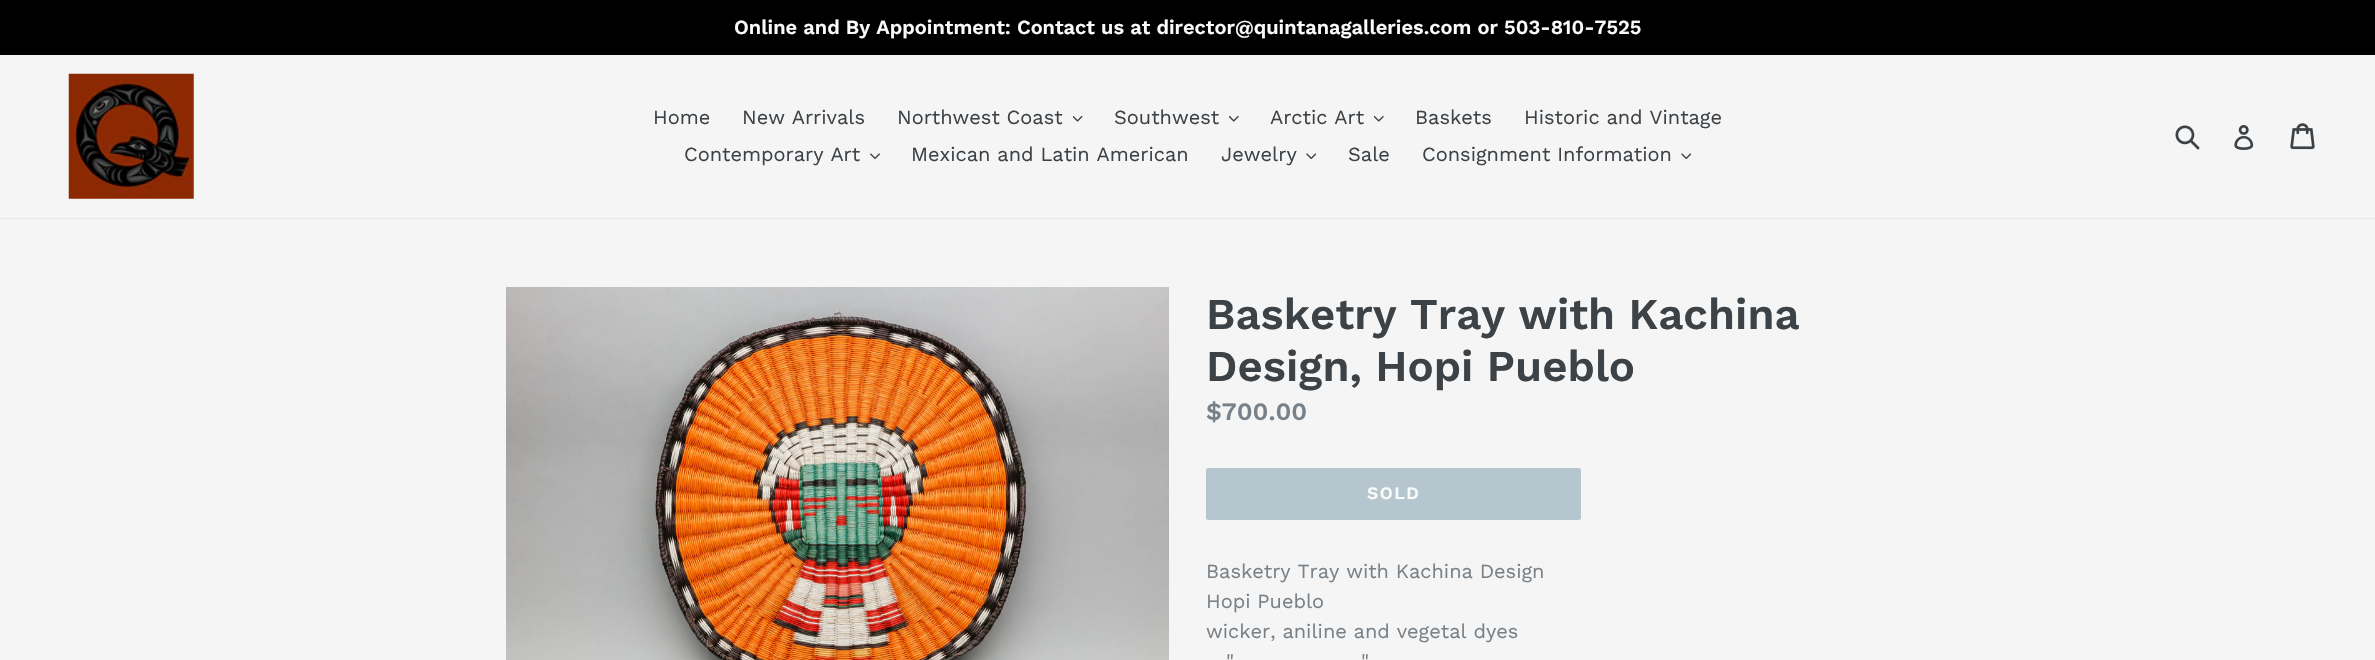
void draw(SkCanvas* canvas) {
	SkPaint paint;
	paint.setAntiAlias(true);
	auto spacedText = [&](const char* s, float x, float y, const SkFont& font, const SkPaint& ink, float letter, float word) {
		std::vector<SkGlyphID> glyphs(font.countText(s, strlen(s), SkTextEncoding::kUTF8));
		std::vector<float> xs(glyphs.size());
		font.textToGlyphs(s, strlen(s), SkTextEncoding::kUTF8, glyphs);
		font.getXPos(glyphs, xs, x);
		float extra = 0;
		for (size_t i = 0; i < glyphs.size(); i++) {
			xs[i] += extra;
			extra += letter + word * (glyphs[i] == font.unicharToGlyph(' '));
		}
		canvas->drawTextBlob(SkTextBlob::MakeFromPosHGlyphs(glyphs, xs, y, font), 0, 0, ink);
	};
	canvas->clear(0xfff5f5f5);
	paint.setColor(0xff000000);
	canvas->drawRect(SkRect::MakeXYWH(0, 0, 2375, 55), paint);
	SkFont f1(fontMgr->matchFamilyStyle("Work Sans", SkFontStyle(600, SkFontStyle::kNormal_Width, SkFontStyle::kUpright_Slant)), 20);
	f1.setSubpixel(true);
	paint.setColor(0xfffafafa);
	canvas->drawString("Online and By Appointment: Contact us at director@quintanagalleries.com or 503-810-7525", 734, 34, f1, paint);
	paint.setColor(0xffe8e9eb);
	canvas->drawRect(SkRect::MakeXYWH(0, 218, 2375, 1), paint);
	canvas->drawImageRect(SkImages::DeferredFromEncodedData(SkData::MakeFromFileName("img1.png")), SkRect::MakeXYWH(68, 73, 126, 126), SkSamplingOptions());
	SkFont f2(fontMgr->matchFamilyStyle("Work Sans", SkFontStyle::Normal()), 20);
	f2.setSubpixel(true);
	paint.setColor(0xff3d4246);
	canvas->drawString("Home", 653, 124, f2, paint);
	canvas->drawString("New Arrivals", 742, 124, f2, paint);
	canvas->drawString("Northwest Coast", 897, 124, f2, paint);
	canvas->drawImageRect(SkImages::DeferredFromEncodedData(SkData::MakeFromFileName("img2.png")), SkRect::MakeXYWH(1073, 115, 10, 7), SkSamplingOptions());
	canvas->drawString("Southwest", 1114, 124, f2, paint);
	canvas->drawImageRect(SkImages::DeferredFromEncodedData(SkData::MakeFromFileName("img3.png")), SkRect::MakeXYWH(1229, 115, 10, 7), SkSamplingOptions());
	canvas->drawString("Arctic Art", 1270, 124, f2, paint);
	canvas->drawImageRect(SkImages::DeferredFromEncodedData(SkData::MakeFromFileName("img3.png")), SkRect::MakeXYWH(1374, 115, 10, 7), SkSamplingOptions());
	canvas->drawString("Baskets", 1415, 124, f2, paint);
	canvas->drawString("Historic and Vintage", 1524, 124, f2, paint);
	canvas->drawString("Contemporary Art", 684, 161, f2, paint);
	canvas->drawImageRect(SkImages::DeferredFromEncodedData(SkData::MakeFromFileName("img4.png")), SkRect::MakeXYWH(870, 153, 10, 6), SkSamplingOptions());
	canvas->drawString("Mexican and Latin American", 911, 161, f2, paint);
	canvas->drawString("Jewelry", 1221, 161, f2, paint);
	canvas->drawImageRect(SkImages::DeferredFromEncodedData(SkData::MakeFromFileName("img5.png")), SkRect::MakeXYWH(1306, 153, 10, 7), SkSamplingOptions());
	canvas->drawString("Sale", 1348, 161, f2, paint);
	canvas->drawString("Consignment Information", 1422, 161, f2, paint);
	canvas->drawImageRect(SkImages::DeferredFromEncodedData(SkData::MakeFromFileName("img5.png")), SkRect::MakeXYWH(1681, 153, 10, 7), SkSamplingOptions());
	canvas->drawImageRect(SkImages::DeferredFromEncodedData(SkData::MakeFromFileName("img6.png")), SkRect::MakeXYWH(2175, 125, 25, 25), SkSamplingOptions());
	canvas->drawImageRect(SkImages::DeferredFromEncodedData(SkData::MakeFromFileName("img7.png")), SkRect::MakeXYWH(2234, 125, 20, 25), SkSamplingOptions());
	canvas->drawImageRect(SkImages::DeferredFromEncodedData(SkData::MakeFromFileName("img8.png")), SkRect::MakeXYWH(2290, 123, 25, 27), SkSamplingOptions());
	canvas->drawImageRect(SkImages::DeferredFromEncodedData(SkData::MakeFromFileName("img9.png")), SkRect::MakeXYWH(506, 287, 663, 373), SkSamplingOptions());
	SkFont f3(fontMgr->matchFamilyStyle("Work Sans", SkFontStyle(600, SkFontStyle::kNormal_Width, SkFontStyle::kUpright_Slant)), 43.75);
	f3.setSubpixel(true);
	canvas->drawString("Basketry Tray with Kachina", 1206, 329, f3, paint);
	canvas->drawString("Design, Hopi Pueblo", 1206, 381, f3, paint);
	SkFont f4(fontMgr->matchFamilyStyle("Work Sans", SkFontStyle(600, SkFontStyle::kNormal_Width, SkFontStyle::kUpright_Slant)), 25);
	f4.setSubpixel(true);
	paint.setColor(0xff788188);
	canvas->drawString("$700.00", 1206, 420, f4, paint);
	paint.setColor(0xffb6c6cf);
	canvas->drawRoundRect(SkRect::MakeXYWH(1206, 468, 375, 52), 2.5, 2.5, paint);
	SkFont f5(fontMgr->matchFamilyStyle("Work Sans", SkFontStyle(600, SkFontStyle::kNormal_Width, SkFontStyle::kUpright_Slant)), 17.5);
	f5.setSubpixel(true);
	paint.setColor(0xfffafafa);
	spacedText("SOLD", 1367, 499, f5, paint, 1.5, 0);
	paint.setColor(0xff788188);
	canvas->drawString("Basketry Tray with Kachina Design", 1206, 578, f2, paint);
	canvas->drawString("Hopi Pueblo", 1206, 608, f2, paint);
	canvas->drawString("wicker, aniline and vegetal dyes", 1206, 638, f2, paint);
	canvas->drawString("\"", 1226, 668, f2, paint);
	canvas->drawString("\"", 1361, 668, f2, paint);
}
